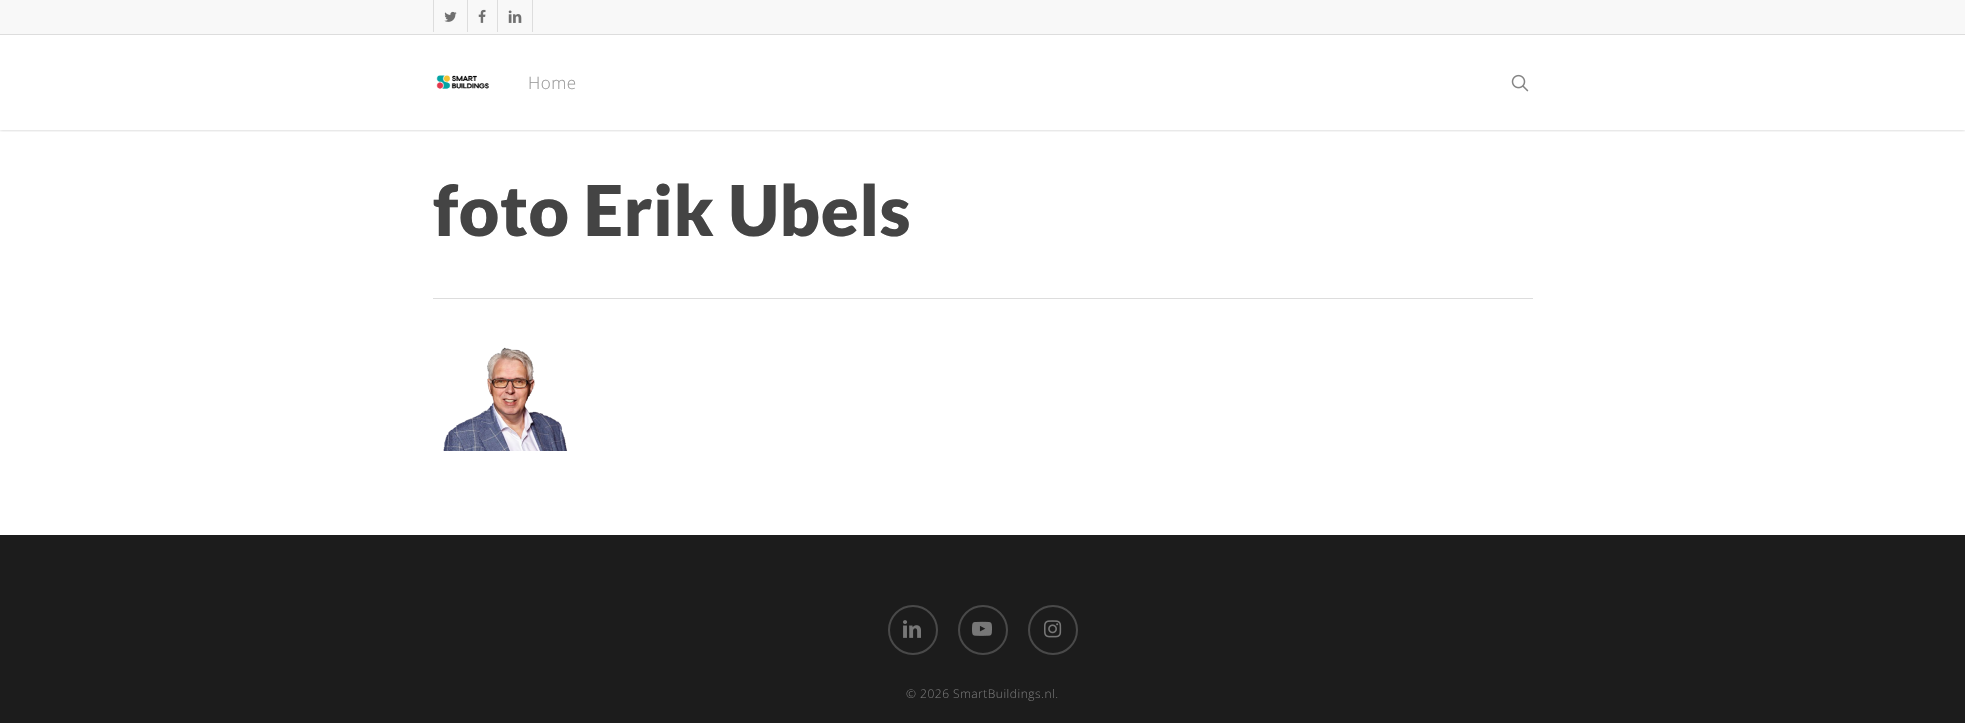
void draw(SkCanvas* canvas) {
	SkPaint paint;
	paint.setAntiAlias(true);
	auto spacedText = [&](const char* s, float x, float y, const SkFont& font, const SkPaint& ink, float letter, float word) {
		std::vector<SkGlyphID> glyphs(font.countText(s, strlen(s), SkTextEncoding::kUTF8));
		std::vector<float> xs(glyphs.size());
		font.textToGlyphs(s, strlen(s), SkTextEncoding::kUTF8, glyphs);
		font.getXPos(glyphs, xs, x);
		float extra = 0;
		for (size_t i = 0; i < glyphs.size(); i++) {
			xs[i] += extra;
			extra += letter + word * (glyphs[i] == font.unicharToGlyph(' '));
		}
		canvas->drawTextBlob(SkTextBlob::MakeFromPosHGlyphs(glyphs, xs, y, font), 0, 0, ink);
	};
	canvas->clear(0xffffffff);
	canvas->save();
	canvas->clipRect(SkRect::MakeXYWH(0, 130, 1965, 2));
	paint.setColor(0x38000000);
	paint.setMaskFilter(SkMaskFilter::MakeBlur(kNormal_SkBlurStyle, 1.5));
	canvas->drawRect(SkRect::MakeXYWH(0, 0, 1965, 130), paint);
	paint.setMaskFilter(nullptr);
	canvas->restore();
	paint.setColor(0xfff8f8f8);
	canvas->drawRect(SkRect::MakeXYWH(0, 0, 1965, 34), paint);
	paint.setColor(0xffdddddd);
	canvas->drawRect(SkRect::MakeXYWH(0, 34, 1965, 1), paint);
	canvas->drawRect(SkRect::MakeXYWH(433, 0, 1, 32), paint);
	canvas->drawImageRect(SkImages::DeferredFromEncodedData(SkData::MakeFromFileName("img1.png")), SkRect::MakeXYWH(444, 11, 13, 11), SkSamplingOptions());
	canvas->drawRect(SkRect::MakeXYWH(467, 0, 1, 32), paint);
	canvas->drawImageRect(SkImages::DeferredFromEncodedData(SkData::MakeFromFileName("img2.png")), SkRect::MakeXYWH(478, 9, 8, 14), SkSamplingOptions());
	canvas->drawRect(SkRect::MakeXYWH(532, 0, 1, 32), paint);
	canvas->drawRect(SkRect::MakeXYWH(497, 0, 1, 32), paint);
	canvas->drawImageRect(SkImages::DeferredFromEncodedData(SkData::MakeFromFileName("img3.png")), SkRect::MakeXYWH(508, 10, 14, 13), SkSamplingOptions());
	canvas->drawImageRect(SkImages::DeferredFromEncodedData(SkData::MakeFromFileName("img4.png")), SkRect::MakeXYWH(436, 75, 53, 14), SkSamplingOptions());
	SkFont f1(fontMgr->matchFamilyStyle("Open Sans", SkFontStyle(300, SkFontStyle::kNormal_Width, SkFontStyle::kUpright_Slant)), 17);
	f1.setSubpixel(true);
	paint.setColor(0xff999999);
	spacedText("Home", 528, 89, f1, paint, 0.5, 0);
	canvas->drawImageRect(SkImages::DeferredFromEncodedData(SkData::MakeFromFileName("img5.png")), SkRect::MakeXYWH(1511, 74, 18, 18), SkSamplingOptions());
	paint.setColor(0xffdddddd);
	canvas->drawRect(SkRect::MakeXYWH(433, 298, 1100, 1), paint);
	SkFont f2(fontMgr->matchFamilyStyle("Lato", SkFontStyle(900, SkFontStyle::kNormal_Width, SkFontStyle::kUpright_Slant)), 70);
	f2.setSubpixel(true);
	paint.setColor(0xff444444);
	spacedText("foto Erik Ubels", 433, 236, f2, paint, 0.5, 0);
	canvas->drawImageRect(SkImages::DeferredFromEncodedData(SkData::MakeFromFileName("img6.png")), SkRect::MakeXYWH(443, 347, 125, 104), SkSamplingOptions());
	paint.setColor(0xff1c1c1c);
	canvas->drawRect(SkRect::MakeXYWH(0, 535, 1965, 188), paint);
	canvas->drawImageRect(SkImages::DeferredFromEncodedData(SkData::MakeFromFileName("img7.png")), SkRect::MakeXYWH(903, 620, 18, 18), SkSamplingOptions());
	paint.setStroke(true);
	paint.setStrokeWidth(2);
	paint.setColor(0xff494949);
	canvas->drawCircle(913, 630, 24, paint);
	canvas->drawImageRect(SkImages::DeferredFromEncodedData(SkData::MakeFromFileName("img8.png")), SkRect::MakeXYWH(972, 621, 20, 15), SkSamplingOptions());
	canvas->drawCircle(983, 630, 24, paint);
	canvas->drawImageRect(SkImages::DeferredFromEncodedData(SkData::MakeFromFileName("img9.png")), SkRect::MakeXYWH(1044, 620, 18, 18), SkSamplingOptions());
	canvas->drawCircle(1053, 630, 24, paint);
	SkFont f3(fontMgr->matchFamilyStyle("Open Sans", SkFontStyle(300, SkFontStyle::kNormal_Width, SkFontStyle::kUpright_Slant)), 12);
	f3.setSubpixel(true);
	paint.setStroke(false);
	paint.setColor(0xff777777);
	spacedText("© 2026 SmartBuildings.nl.", 906, 698, f3, paint, 0.5, 0);
}
